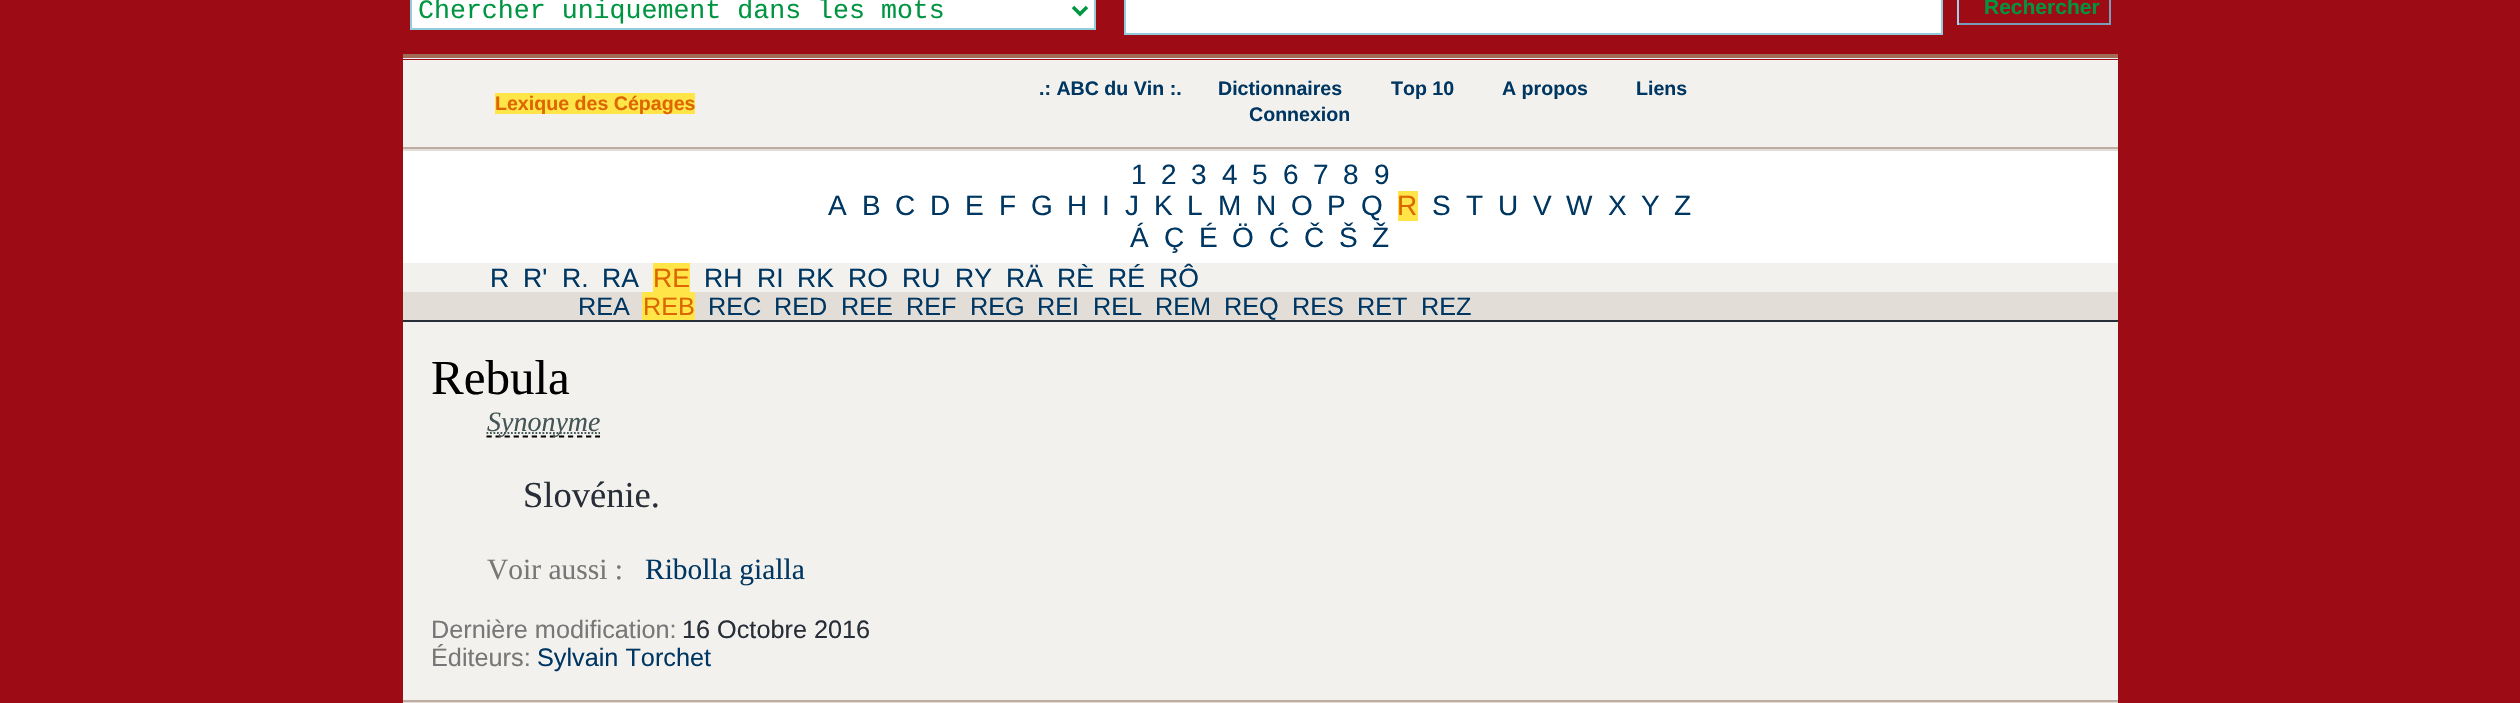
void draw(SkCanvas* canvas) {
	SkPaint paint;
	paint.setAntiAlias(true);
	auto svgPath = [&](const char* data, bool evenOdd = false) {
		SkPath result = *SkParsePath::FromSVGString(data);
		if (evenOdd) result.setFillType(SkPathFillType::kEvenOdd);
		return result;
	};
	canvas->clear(0xff9d0c15);
	paint.setColor(0xffffffff);
	canvas->drawRect(SkRect::MakeXYWH(411, -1, 684, 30), paint);
	paint.setStroke(true);
	paint.setStrokeWidth(2);
	paint.setColor(0xff92cddc);
	canvas->drawRect(SkRect::MakeXYWH(411, -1, 684, 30), paint);
	paint.setStrokeWidth(3.5);
	paint.setColor(0xff009641);
	canvas->drawPath(svgPath("M1073 7L1080 14L1087 7"), paint);
	SkFont f1(fontMgr->matchFamilyStyle("Liberation Mono", SkFontStyle::Normal()), 26.6);
	f1.setSubpixel(true);
	paint.setStroke(false);
	canvas->drawString("Chercher uniquement dans les mots", 418, 18, f1, paint);
	paint.setColor(0xffffffff);
	canvas->drawRect(SkRect::MakeXYWH(1125, -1, 817, 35), paint);
	paint.setStroke(true);
	paint.setStrokeWidth(2);
	paint.setColor(0xff92cddc);
	canvas->drawRect(SkRect::MakeXYWH(1125, -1, 817, 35), paint);
	paint.setStroke(false);
	paint.setColor(0xff7b9cbc);
	canvas->drawRect(SkRect::MakeXYWH(2109, 0, 2, 25), paint);
	canvas->drawRect(SkRect::MakeXYWH(1957, 23, 154, 2), paint);
	paint.setColor(0xffa0d0ec);
	canvas->drawRect(SkRect::MakeXYWH(1957, 0, 2, 25), paint);
	SkFont f2(fontMgr->matchFamilyStyle("Liberation Sans", SkFontStyle::Bold()), 21);
	f2.setSubpixel(true);
	paint.setColor(0xff009641);
	canvas->drawString("Rechercher", 1984, 14, f2, paint);
	paint.setColor(0xffedf2fd);
	canvas->drawRect(SkRect::MakeXYWH(403, 58, 1715, 1), paint);
	paint.setColor(0xffa26b55);
	canvas->drawRect(SkRect::MakeXYWH(403, 54, 1715, 4), paint);
	paint.setColor(0xfff2f1ee);
	canvas->drawRect(SkRect::MakeXYWH(403, 60, 1715, 87), paint);
	paint.setColor(0xffffe547);
	canvas->drawRect(SkRect::MakeXYWH(495, 93, 200, 21), paint);
	SkFont f3(fontMgr->matchFamilyStyle("Liberation Sans", SkFontStyle::Bold()), 19.6);
	f3.setSubpixel(true);
	paint.setColor(0xffdd6600);
	canvas->drawString("Lexique des Cépages", 495, 110, f3, paint);
	paint.setColor(0xff003762);
	canvas->drawString(".: ABC du Vin :.", 1039, 95, f3, paint);
	canvas->drawString("Dictionnaires", 1218, 95, f3, paint);
	canvas->drawString("Top 10", 1391, 95, f3, paint);
	canvas->drawString("A propos", 1502, 95, f3, paint);
	canvas->drawString("Liens", 1636, 95, f3, paint);
	canvas->drawString("Connexion", 1249, 121, f3, paint);
	paint.setColor(0xffe2ddd7);
	canvas->drawRect(SkRect::MakeXYWH(403, 149, 1715, 2), paint);
	paint.setColor(0xffbeada3);
	canvas->drawRect(SkRect::MakeXYWH(403, 147, 1715, 2), paint);
	paint.setColor(0xffffffff);
	canvas->drawRect(SkRect::MakeXYWH(403, 151, 1715, 112), paint);
	SkFont f4(fontMgr->matchFamilyStyle("Liberation Sans", SkFontStyle::Normal()), 28);
	f4.setSubpixel(true);
	paint.setColor(0xff003762);
	canvas->drawString("1", 1131, 184, f4, paint);
	canvas->drawString("2", 1161, 184, f4, paint);
	canvas->drawString("3", 1191, 184, f4, paint);
	canvas->drawString("4", 1222, 184, f4, paint);
	canvas->drawString("5", 1252, 184, f4, paint);
	canvas->drawString("6", 1283, 184, f4, paint);
	canvas->drawString("7", 1313, 184, f4, paint);
	canvas->drawString("8", 1343, 184, f4, paint);
	canvas->drawString("9", 1374, 184, f4, paint);
	canvas->drawString("A", 828, 215, f4, paint);
	canvas->drawString("B", 862, 215, f4, paint);
	canvas->drawString("C", 895, 215, f4, paint);
	canvas->drawString("D", 930, 215, f4, paint);
	canvas->drawString("E", 965, 215, f4, paint);
	canvas->drawString("F", 999, 215, f4, paint);
	canvas->drawString("G", 1031, 215, f4, paint);
	canvas->drawString("H", 1067, 215, f4, paint);
	canvas->drawString("I", 1102, 215, f4, paint);
	canvas->drawString("J", 1125, 215, f4, paint);
	canvas->drawString("K", 1154, 215, f4, paint);
	canvas->drawString("L", 1187, 215, f4, paint);
	canvas->drawString("M", 1218, 215, f4, paint);
	canvas->drawString("N", 1256, 215, f4, paint);
	canvas->drawString("O", 1291, 215, f4, paint);
	canvas->drawString("P", 1327, 215, f4, paint);
	canvas->drawString("Q", 1361, 215, f4, paint);
	paint.setColor(0xffffe547);
	canvas->drawRect(SkRect::MakeXYWH(1398, 191, 20, 30), paint);
	paint.setColor(0xffdd6600);
	canvas->drawString("R", 1397, 215, f4, paint);
	paint.setColor(0xff003762);
	canvas->drawString("S", 1432, 215, f4, paint);
	canvas->drawString("T", 1466, 215, f4, paint);
	canvas->drawString("U", 1498, 215, f4, paint);
	canvas->drawString("V", 1533, 215, f4, paint);
	canvas->drawString("W", 1566, 215, f4, paint);
	canvas->drawString("X", 1608, 215, f4, paint);
	canvas->drawString("Y", 1641, 215, f4, paint);
	canvas->drawString("Z", 1674, 215, f4, paint);
	canvas->drawString("Á", 1130, 247, f4, paint);
	canvas->drawString("Ç", 1164, 247, f4, paint);
	canvas->drawString("É", 1199, 247, f4, paint);
	canvas->drawString("Ö", 1232, 247, f4, paint);
	canvas->drawString("Ć", 1269, 247, f4, paint);
	canvas->drawString("Č", 1304, 247, f4, paint);
	canvas->drawString("Š", 1339, 247, f4, paint);
	canvas->drawString("Ž", 1372, 247, f4, paint);
	paint.setColor(0xfff2f1ee);
	canvas->drawRect(SkRect::MakeXYWH(403, 263, 1715, 29), paint);
	SkFont f5(fontMgr->matchFamilyStyle("Liberation Sans", SkFontStyle::Normal()), 26.6);
	f5.setSubpixel(true);
	paint.setColor(0xff003762);
	canvas->drawString("R", 490, 287, f5, paint);
	canvas->drawString("R'", 523, 287, f5, paint);
	canvas->drawString("R.", 562, 287, f5, paint);
	canvas->drawString("RA", 602, 287, f5, paint);
	paint.setColor(0xffffe547);
	canvas->drawRect(SkRect::MakeXYWH(653, 263, 37, 29), paint);
	paint.setColor(0xffdd6600);
	canvas->drawString("RE", 653, 287, f5, paint);
	paint.setColor(0xff003762);
	canvas->drawString("RH", 704, 287, f5, paint);
	canvas->drawString("RI", 757, 287, f5, paint);
	canvas->drawString("RK", 797, 287, f5, paint);
	canvas->drawString("RO", 848, 287, f5, paint);
	canvas->drawString("RU", 902, 287, f5, paint);
	canvas->drawString("RY", 955, 287, f5, paint);
	canvas->drawString("RÄ", 1006, 287, f5, paint);
	canvas->drawString("RÈ", 1057, 287, f5, paint);
	canvas->drawString("RÉ", 1108, 287, f5, paint);
	canvas->drawString("RÔ", 1159, 287, f5, paint);
	paint.setColor(0xffe2ddd7);
	canvas->drawRect(SkRect::MakeXYWH(403, 292, 1715, 28), paint);
	paint.setColor(0xff282e37);
	canvas->drawRect(SkRect::MakeXYWH(403, 320, 1715, 2), paint);
	SkFont f6(fontMgr->matchFamilyStyle("Liberation Sans", SkFontStyle::Normal()), 25.25);
	f6.setSubpixel(true);
	paint.setColor(0xff003762);
	canvas->drawString("REA", 578, 315, f6, paint);
	paint.setColor(0xffffe547);
	canvas->drawRect(SkRect::MakeXYWH(642, 292, 53, 28), paint);
	paint.setColor(0xffdd6600);
	canvas->drawString("REB", 643, 315, f6, paint);
	paint.setColor(0xff003762);
	canvas->drawString("REC", 708, 315, f6, paint);
	canvas->drawString("RED", 774, 315, f6, paint);
	canvas->drawString("REE", 841, 315, f6, paint);
	canvas->drawString("REF", 906, 315, f6, paint);
	canvas->drawString("REG", 970, 315, f6, paint);
	canvas->drawString("REI", 1037, 315, f6, paint);
	canvas->drawString("REL", 1093, 315, f6, paint);
	canvas->drawString("REM", 1155, 315, f6, paint);
	canvas->drawString("REQ", 1224, 315, f6, paint);
	canvas->drawString("RES", 1292, 315, f6, paint);
	canvas->drawString("RET", 1357, 315, f6, paint);
	canvas->drawString("REZ", 1421, 315, f6, paint);
	paint.setColor(0xfff2f1ee);
	canvas->drawRect(SkRect::MakeXYWH(403, 322, 1715, 378), paint);
	SkFont f7(fontMgr->matchFamilyStyle("Liberation Serif", SkFontStyle::Normal()), 49);
	f7.setSubpixel(true);
	paint.setColor(0xff000000);
	canvas->drawString("Rebula", 431, 394, f7, paint);
	paint.setStroke(true);
	paint.setStrokeWidth(1.8);
	paint.setPathEffect(SkDashPathEffect::Make({{5.25f, 3.8f}}, 0));
	canvas->drawPath(svgPath("M486.5 436.5H600"), paint);
	paint.setPathEffect(nullptr);
	paint.setColor(0xff445555);
	paint.setPathEffect(SkDashPathEffect::Make({{1.75f, 1.75f}}, 0));
	canvas->drawPath(svgPath("M486.5 433H600"), paint);
	paint.setPathEffect(nullptr);
	SkFont f8(fontMgr->matchFamilyStyle("Liberation Serif", SkFontStyle::Italic()), 28);
	f8.setSubpixel(true);
	paint.setStroke(false);
	canvas->drawString("Synonyme", 487, 431, f8, paint);
	SkFont f9(fontMgr->matchFamilyStyle("Liberation Serif", SkFontStyle::Normal()), 36.5);
	f9.setSubpixel(true);
	paint.setColor(0xff282e37);
	canvas->drawString("Slovénie.", 523, 507, f9, paint);
	SkFont f10(fontMgr->matchFamilyStyle("Liberation Serif", SkFontStyle::Normal()), 29.5);
	f10.setSubpixel(true);
	paint.setColor(0xff777777);
	canvas->drawString("Voir aussi :", 487, 579, f10, paint);
	paint.setColor(0xff003762);
	canvas->drawString("Ribolla gialla", 645, 579, f10, paint);
	paint.setColor(0xff777777);
	canvas->drawString("Dernière modification:", 431, 638, f6, paint);
	paint.setColor(0xff282e37);
	canvas->drawString("16 Octobre 2016", 682, 638, f6, paint);
	paint.setColor(0xff777777);
	canvas->drawString("Éditeurs:", 431, 666, f6, paint);
	paint.setColor(0xff003762);
	canvas->drawString("Sylvain Torchet", 537, 666, f6, paint);
	paint.setColor(0xffe2ddd7);
	canvas->drawRect(SkRect::MakeXYWH(403, 702, 1715, 1), paint);
	paint.setColor(0xffbeada3);
	canvas->drawRect(SkRect::MakeXYWH(403, 700, 1715, 2), paint);
}
